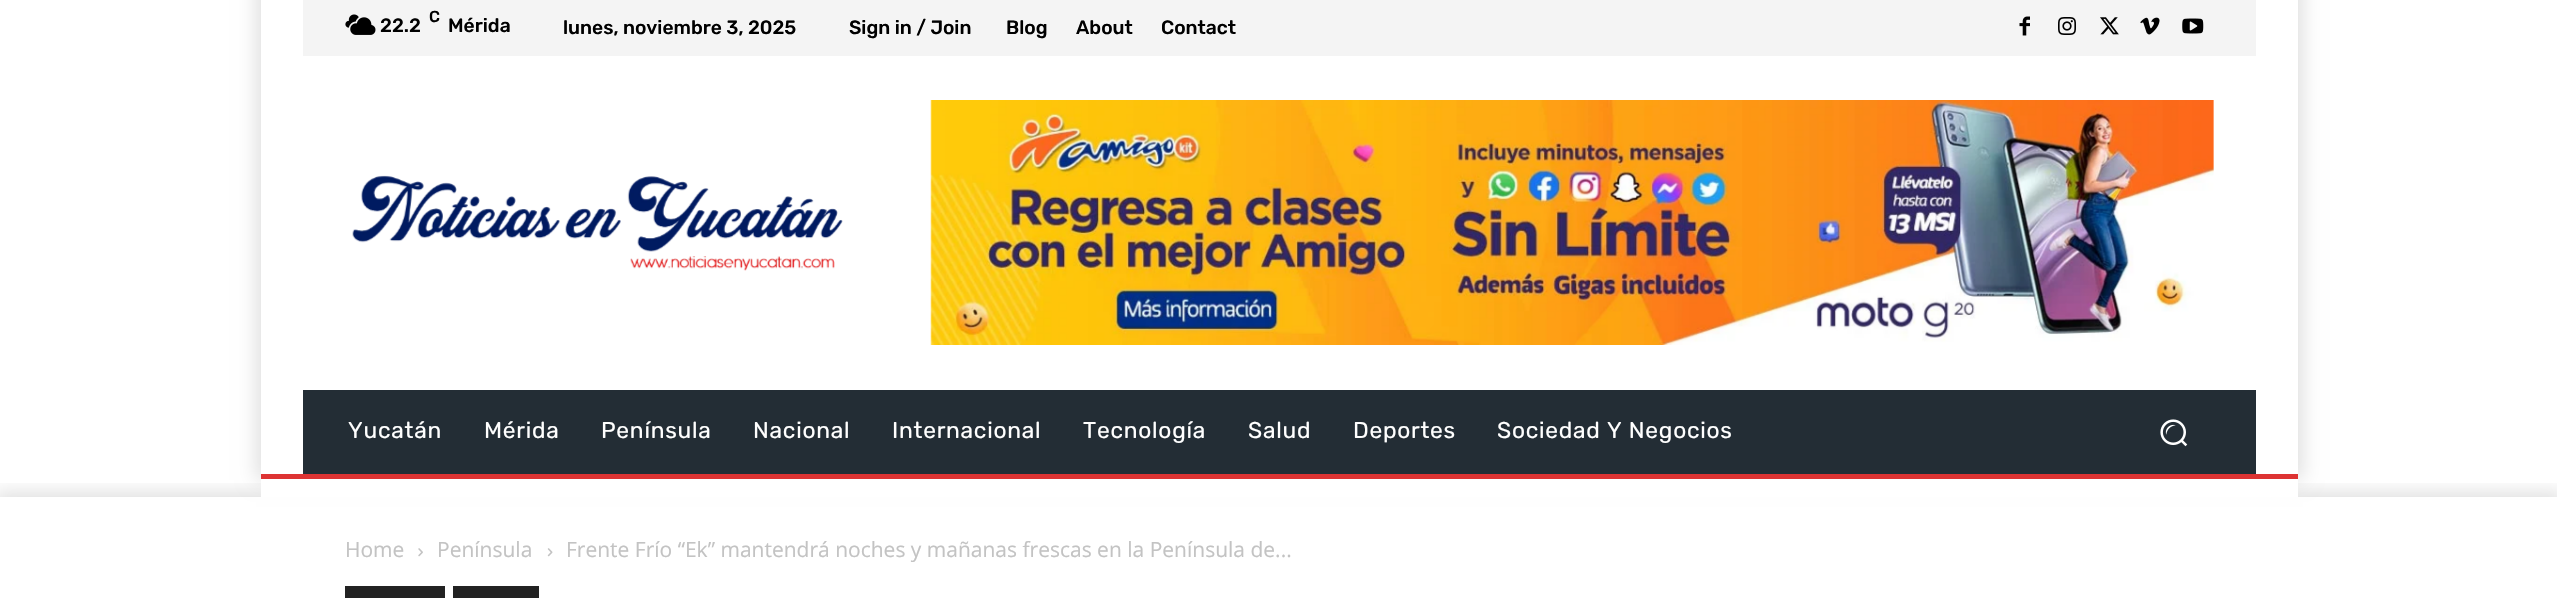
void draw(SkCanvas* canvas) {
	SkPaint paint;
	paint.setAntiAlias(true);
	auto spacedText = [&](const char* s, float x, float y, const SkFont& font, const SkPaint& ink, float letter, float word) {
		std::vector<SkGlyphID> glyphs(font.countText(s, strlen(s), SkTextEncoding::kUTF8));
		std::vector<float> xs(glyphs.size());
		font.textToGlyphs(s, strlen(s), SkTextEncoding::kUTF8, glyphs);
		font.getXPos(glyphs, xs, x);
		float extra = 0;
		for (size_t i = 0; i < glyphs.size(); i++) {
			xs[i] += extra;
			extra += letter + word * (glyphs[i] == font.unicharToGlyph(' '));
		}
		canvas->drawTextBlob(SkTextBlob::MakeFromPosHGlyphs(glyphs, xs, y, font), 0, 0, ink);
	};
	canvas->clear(0xffffffff);
	paint.setColor(0x1f000000);
	paint.setMaskFilter(SkMaskFilter::MakeBlur(kNormal_SkBlurStyle, 9));
	canvas->drawRect(SkRect::MakeXYWH(256, -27, 2047, 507), paint);
	paint.setMaskFilter(nullptr);
	canvas->save();
	canvas->clipRect(SkRect::MakeXYWH(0, 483, 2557, 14));
	paint.setMaskFilter(SkMaskFilter::MakeBlur(kNormal_SkBlurStyle, 9));
	canvas->drawRect(SkRect::MakeXYWH(-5, 492, 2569, 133), paint);
	paint.setMaskFilter(nullptr);
	canvas->restore();
	paint.setColor(0xffffffff);
	canvas->drawRect(SkRect::MakeXYWH(261, 0, 2037, 497), paint);
	paint.setColor(0xfff4f4f4);
	canvas->drawRect(SkRect::MakeXYWH(303, 0, 1953, 56), paint);
	canvas->drawImageRect(SkImages::DeferredFromEncodedData(SkData::MakeFromFileName("img1.png")), SkRect::MakeXYWH(345, 14, 31, 21), SkSamplingOptions());
	SkFont f1(fontMgr->matchFamilyStyle("Rubik", SkFontStyle(500, SkFontStyle::kNormal_Width, SkFontStyle::kUpright_Slant)), 16);
	f1.setSubpixel(true);
	paint.setColor(0xff000000);
	canvas->drawString("C", 429, 22, f1, paint);
	SkFont f2(fontMgr->matchFamilyStyle("Rubik", SkFontStyle(500, SkFontStyle::kNormal_Width, SkFontStyle::kUpright_Slant)), 19.25);
	f2.setSubpixel(true);
	canvas->drawString("22.2", 380, 32, f2, paint);
	canvas->drawString("Mérida", 448, 32, f2, paint);
	canvas->drawString("lunes, noviembre 3, 2025", 563, 34, f2, paint);
	canvas->drawString("Sign in / Join", 849, 34, f2, paint);
	canvas->drawString("Blog", 1006, 34, f2, paint);
	canvas->drawString("About", 1076, 34, f2, paint);
	canvas->drawString("Contact", 1161, 34, f2, paint);
	canvas->drawImageRect(SkImages::DeferredFromEncodedData(SkData::MakeFromFileName("img2.png")), SkRect::MakeXYWH(2019, 16, 11, 20), SkSamplingOptions());
	canvas->drawImageRect(SkImages::DeferredFromEncodedData(SkData::MakeFromFileName("img3.png")), SkRect::MakeXYWH(2058, 17, 18, 18), SkSamplingOptions());
	canvas->drawImageRect(SkImages::DeferredFromEncodedData(SkData::MakeFromFileName("img4.png")), SkRect::MakeXYWH(2100, 17, 19, 18), SkSamplingOptions());
	canvas->drawImageRect(SkImages::DeferredFromEncodedData(SkData::MakeFromFileName("img5.png")), SkRect::MakeXYWH(2140, 17, 20, 18), SkSamplingOptions());
	canvas->drawImageRect(SkImages::DeferredFromEncodedData(SkData::MakeFromFileName("img6.png")), SkRect::MakeXYWH(2182, 18, 22, 16), SkSamplingOptions());
	canvas->drawImageRect(SkImages::DeferredFromEncodedData(SkData::MakeFromFileName("img7.png")), SkRect::MakeXYWH(352, 175, 491, 96), SkSamplingOptions());
	canvas->drawImageRect(SkImages::DeferredFromEncodedData(SkData::MakeFromFileName("img8.png")), SkRect::MakeXYWH(930, 100, 1284, 245), SkSamplingOptions());
	paint.setColor(0xff232d35);
	canvas->drawRect(SkRect::MakeXYWH(303, 390, 1953, 84), paint);
	SkFont f3(fontMgr->matchFamilyStyle("Rubik", SkFontStyle::Normal()), 22.75);
	f3.setSubpixel(true);
	paint.setColor(0xffffffff);
	spacedText("Yucatán", 348, 438, f3, paint, 0.75, 0);
	spacedText("Mérida", 484, 438, f3, paint, 0.75, 0);
	spacedText("Península", 601, 438, f3, paint, 0.75, 0);
	spacedText("Nacional", 753, 438, f3, paint, 0.75, 0);
	spacedText("Internacional", 892, 438, f3, paint, 0.75, 0);
	spacedText("Tecnología", 1083, 438, f3, paint, 0.75, 0);
	spacedText("Salud", 1248, 438, f3, paint, 0.75, 0);
	spacedText("Deportes", 1353, 438, f3, paint, 0.75, 0);
	spacedText("Sociedad Y Negocios", 1497, 438, f3, paint, 0.75, 0);
	canvas->drawImageRect(SkImages::DeferredFromEncodedData(SkData::MakeFromFileName("img9.png")), SkRect::MakeXYWH(2160, 419, 28, 28), SkSamplingOptions());
	paint.setColor(0xffdd3333);
	canvas->drawRect(SkRect::MakeXYWH(261, 474, 2037, 5), paint);
	SkFont f4(fontMgr->matchFamilyStyle("Open Sans", SkFontStyle::Normal()), 21);
	f4.setSubpixel(true);
	paint.setColor(0xffc3c3c3);
	canvas->drawString("Home", 345, 557, f4, paint);
	canvas->drawImageRect(SkImages::DeferredFromEncodedData(SkData::MakeFromFileName("img10.png")), SkRect::MakeXYWH(418, 548, 5, 9), SkSamplingOptions());
	canvas->drawString("Península", 437, 557, f4, paint);
	canvas->drawImageRect(SkImages::DeferredFromEncodedData(SkData::MakeFromFileName("img11.png")), SkRect::MakeXYWH(547, 548, 6, 9), SkSamplingOptions());
	canvas->drawString("Frente Frío “Ek” mantendrá noches y mañanas frescas en la Península de...", 566, 557, f4, paint);
	paint.setColor(0xff222222);
	canvas->drawRect(SkRect::MakeXYWH(345, 586, 100, 12), paint);
	canvas->drawRect(SkRect::MakeXYWH(453, 586, 86, 12), paint);
}
